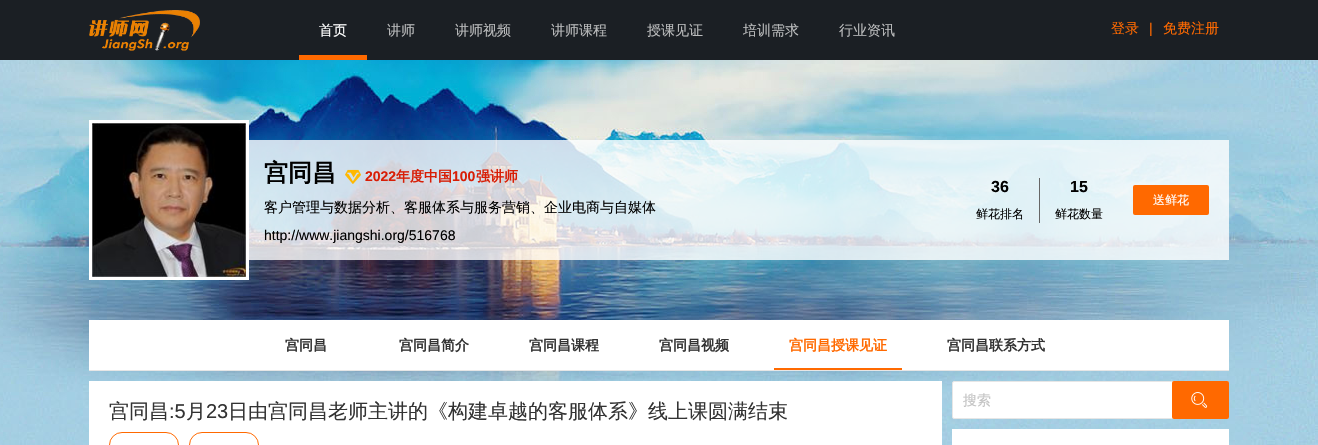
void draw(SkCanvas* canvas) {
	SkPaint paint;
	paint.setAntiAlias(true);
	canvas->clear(0xffffffff);
	canvas->drawImageRect(SkImages::DeferredFromEncodedData(SkData::MakeFromFileName("img1.png")), SkRect::MakeXYWH(0, 60, 1318, 385), SkSamplingOptions());
	paint.setColor(0xff1b1f24);
	canvas->drawRect(SkRect::MakeXYWH(0, 0, 1318, 60), paint);
	canvas->drawImageRect(SkImages::DeferredFromEncodedData(SkData::MakeFromFileName("img2.png")), SkRect::MakeXYWH(89, 10, 111, 41), SkSamplingOptions());
	SkFont f1(fontMgr->matchFamilyStyle("WenQuanYi Zen Hei", SkFontStyle(500, SkFontStyle::kNormal_Width, SkFontStyle::kUpright_Slant)), 14);
	f1.setSubpixel(true);
	paint.setColor(0xffffffff);
	canvas->drawString("首页", 319, 35, f1, paint);
	paint.setColor(0xffff6900);
	canvas->drawRect(SkRect::MakeXYWH(299, 55, 68, 5), paint);
	paint.setColor(0xffbbbcbd);
	canvas->drawString("讲师", 387, 35, f1, paint);
	canvas->drawString("讲师视频", 455, 35, f1, paint);
	canvas->drawString("讲师课程", 551, 35, f1, paint);
	canvas->drawString("授课见证", 647, 35, f1, paint);
	canvas->drawString("培训需求", 743, 35, f1, paint);
	canvas->drawString("行业资讯", 839, 35, f1, paint);
	paint.setColor(0xffff6900);
	canvas->drawString("登录", 1111, 33, f1, paint);
	SkFont f2(fontMgr->matchFamilyStyle("Liberation Sans", SkFontStyle::Normal()), 14);
	f2.setSubpixel(true);
	canvas->drawString("|", 1149, 33, f2, paint);
	canvas->drawString("免费注册", 1163, 33, f1, paint);
	paint.setStroke(true);
	paint.setStrokeWidth(3);
	paint.setColor(0xffffffff);
	canvas->drawRect(SkRect::MakeXYWH(90.5, 121.5, 157, 157), paint);
	canvas->drawImageRect(SkImages::DeferredFromEncodedData(SkData::MakeFromFileName("img3.png")), SkRect::MakeXYWH(92, 123, 154, 154), SkSamplingOptions());
	paint.setStroke(false);
	paint.setColor(0xccffffff);
	canvas->drawRect(SkRect::MakeXYWH(249, 140, 980, 120), paint);
	SkFont f3(fontMgr->matchFamilyStyle("WenQuanYi Zen Hei", SkFontStyle::Bold()), 24);
	f3.setSubpixel(true);
	paint.setColor(0xff000000);
	canvas->drawString("宫同昌", 264, 181, f3, paint);
	canvas->drawImageRect(SkImages::DeferredFromEncodedData(SkData::MakeFromFileName("img4.png")), SkRect::MakeXYWH(345, 169, 16, 15), SkSamplingOptions());
	SkFont f4(fontMgr->matchFamilyStyle("Liberation Sans", SkFontStyle::Bold()), 14);
	f4.setSubpixel(true);
	paint.setColor(0xffd81e06);
	canvas->drawString("2022", 365, 181, f4, paint);
	SkFont f5(fontMgr->matchFamilyStyle("WenQuanYi Zen Hei", SkFontStyle::Bold()), 14);
	f5.setSubpixel(true);
	canvas->drawString("年度中国", 396, 181, f5, paint);
	canvas->drawString("100", 452, 181, f4, paint);
	canvas->drawString("强讲师", 476, 181, f5, paint);
	paint.setColor(0xff000000);
	canvas->drawString("客户管理与数据分析、客服体系与服务营销、企业电商与自媒体", 264, 212, f1, paint);
	canvas->drawString("http://www.jiangshi.org/516768", 264, 240, f2, paint);
	paint.setColor(0xff666666);
	canvas->drawRect(SkRect::MakeXYWH(1039, 178, 1, 45), paint);
	SkFont f6(fontMgr->matchFamilyStyle("Liberation Sans", SkFontStyle::Bold()), 16);
	f6.setSubpixel(true);
	paint.setColor(0xff000000);
	canvas->drawString("36", 991, 192, f6, paint);
	SkFont f7(fontMgr->matchFamilyStyle("WenQuanYi Zen Hei", SkFontStyle(500, SkFontStyle::kNormal_Width, SkFontStyle::kUpright_Slant)), 12);
	f7.setSubpixel(true);
	canvas->drawString("鲜花排名", 976, 218, f7, paint);
	canvas->drawString("15", 1070, 192, f6, paint);
	canvas->drawString("鲜花数量", 1055, 218, f7, paint);
	paint.setColor(0xffff6900);
	canvas->drawRoundRect(SkRect::MakeXYWH(1133, 185, 76, 30), 2, 2, paint);
	paint.setColor(0xffffffff);
	canvas->drawString("送鲜花", 1153, 204, f7, paint);
	canvas->drawRect(SkRect::MakeXYWH(89, 320, 1140, 50), paint);
	paint.setColor(0xffe6e6e6);
	canvas->drawRect(SkRect::MakeXYWH(89, 370, 1140, 1), paint);
	paint.setColor(0xff333333);
	canvas->drawString("宫同昌", 285, 350, f5, paint);
	canvas->drawString("宫同昌简介", 399, 350, f5, paint);
	canvas->drawString("宫同昌课程", 529, 350, f5, paint);
	canvas->drawString("宫同昌视频", 659, 350, f5, paint);
	paint.setColor(0xffff6900);
	canvas->drawString("宫同昌授课见证", 789, 350, f5, paint);
	canvas->drawRect(SkRect::MakeXYWH(774, 368, 128, 2), paint);
	paint.setColor(0xff333333);
	canvas->drawString("宫同昌联系方式", 947, 350, f5, paint);
	paint.setColor(0xffffffff);
	canvas->drawRect(SkRect::MakeXYWH(89, 381, 853, 64), paint);
	SkFont f8(fontMgr->matchFamilyStyle("WenQuanYi Zen Hei", SkFontStyle(500, SkFontStyle::kNormal_Width, SkFontStyle::kUpright_Slant)), 20);
	f8.setSubpixel(true);
	paint.setColor(0xff333333);
	canvas->drawString("宫同昌", 109, 418, f8, paint);
	SkFont f9(fontMgr->matchFamilyStyle("Liberation Sans", SkFontStyle::Normal()), 20);
	f9.setSubpixel(true);
	canvas->drawString(":5", 169, 418, f9, paint);
	canvas->drawString("月", 186, 418, f8, paint);
	canvas->drawString("23", 206, 418, f9, paint);
	canvas->drawString("日由宫同昌老师主讲的《构建卓越的客服体系》线上课圆满结束", 228, 418, f8, paint);
	paint.setStroke(true);
	paint.setStrokeWidth(1);
	paint.setColor(0xffff6900);
	canvas->drawRoundRect(SkRect::MakeXYWH(109.5, 432.5, 69, 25), 12.5, 12.5, paint);
	canvas->drawRoundRect(SkRect::MakeXYWH(189.5, 432.5, 69, 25), 12.5, 12.5, paint);
	paint.setStroke(false);
	paint.setColor(0xffffffff);
	canvas->drawRoundRect(SkRect::MakeXYWH(952.5, 381.5, 276, 37), 1.5, 1.5, paint);
	paint.setStroke(true);
	paint.setColor(0xffe6e6e6);
	canvas->drawRoundRect(SkRect::MakeXYWH(952.5, 381.5, 276, 37), 1.5, 1.5, paint);
	paint.setStroke(false);
	paint.setColor(0xffc3c3c3);
	canvas->drawString("搜索", 963, 405, f1, paint);
	paint.setColor(0xffff6900);
	canvas->drawRoundRect(SkRect::MakeXYWH(1172, 381, 57, 38), 2, 2, paint);
	canvas->drawImageRect(SkImages::DeferredFromEncodedData(SkData::MakeFromFileName("img5.png")), SkRect::MakeXYWH(1191, 392, 17, 16), SkSamplingOptions());
	paint.setColor(0xffffffff);
	canvas->drawRect(SkRect::MakeXYWH(952, 429, 277, 16), paint);
}
